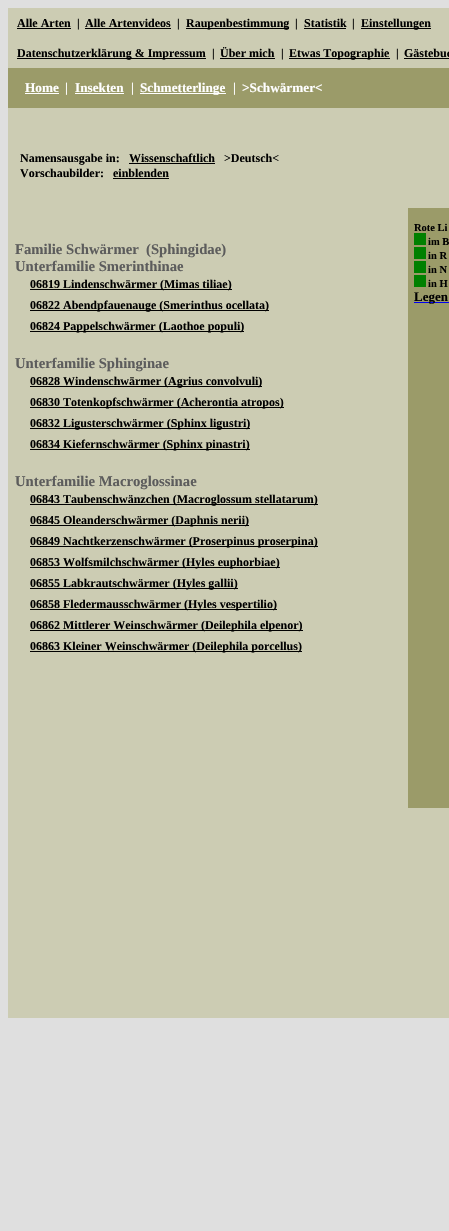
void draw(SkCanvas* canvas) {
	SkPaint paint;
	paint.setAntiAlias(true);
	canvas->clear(0xffdfdfdf);
	paint.setColor(0xffccccb3);
	canvas->drawRect(SkRect::MakeXYWH(8, 8, 441, 60), paint);
	SkFont f1(fontMgr->matchFamilyStyle("Liberation Serif", SkFontStyle::Bold()), 12);
	f1.setSubpixel(true);
	paint.setColor(0xff000000);
	canvas->drawString("Alle Arten", 17, 27, f1, paint);
	canvas->drawRect(SkRect::MakeXYWH(17, 28, 54, 1), paint);
	canvas->drawString("|", 77, 27, f1, paint);
	canvas->drawString("Alle Artenvideos", 85, 27, f1, paint);
	canvas->drawRect(SkRect::MakeXYWH(85, 28, 86, 1), paint);
	canvas->drawString("|", 177, 27, f1, paint);
	canvas->drawRect(SkRect::MakeXYWH(186, 28, 103, 1), paint);
	canvas->drawString("Raupenbestimmung", 186, 27, f1, paint);
	canvas->drawString("|", 295, 27, f1, paint);
	canvas->drawString("Statistik", 304, 27, f1, paint);
	canvas->drawRect(SkRect::MakeXYWH(304, 28, 42, 1), paint);
	canvas->drawString("|", 352, 27, f1, paint);
	canvas->drawRect(SkRect::MakeXYWH(361, 28, 70, 1), paint);
	canvas->drawString("Einstellungen", 361, 27, f1, paint);
	canvas->drawRect(SkRect::MakeXYWH(17, 58, 189, 1), paint);
	canvas->drawString("Datenschutzerklärung & Impressum", 17, 57, f1, paint);
	canvas->drawString("|", 212, 57, f1, paint);
	canvas->drawString("Über mich", 220, 57, f1, paint);
	canvas->drawRect(SkRect::MakeXYWH(220, 58, 55, 1), paint);
	canvas->drawString("|", 281, 57, f1, paint);
	canvas->drawRect(SkRect::MakeXYWH(289, 58, 101, 1), paint);
	canvas->drawString("Etwas Topographie", 289, 57, f1, paint);
	canvas->drawString("|", 396, 57, f1, paint);
	canvas->drawString("Gästebuc", 404, 57, f1, paint);
	canvas->drawRect(SkRect::MakeXYWH(404, 58, 45, 1), paint);
	paint.setColor(0xff9b9b69);
	canvas->drawRect(SkRect::MakeXYWH(8, 68, 441, 40), paint);
	SkFont f2(fontMgr->matchFamilyStyle("Liberation Serif", SkFontStyle::Bold()), 13.25);
	f2.setSubpixel(true);
	paint.setColor(0xffffffff);
	canvas->drawString("Home", 25, 92, f2, paint);
	canvas->drawRect(SkRect::MakeXYWH(25, 93, 34, 1), paint);
	canvas->drawString("|", 65, 92, f2, paint);
	canvas->drawString("Insekten", 75, 92, f2, paint);
	canvas->drawRect(SkRect::MakeXYWH(75, 93, 49, 1), paint);
	canvas->drawString("|", 131, 92, f2, paint);
	canvas->drawRect(SkRect::MakeXYWH(140, 93, 86, 1), paint);
	canvas->drawString("Schmetterlinge", 140, 92, f2, paint);
	canvas->drawString("|", 233, 92, f2, paint);
	canvas->drawString(">Schwärmer<", 242, 92, f2, paint);
	paint.setColor(0xffccccb3);
	canvas->drawRect(SkRect::MakeXYWH(8, 108, 441, 100), paint);
	paint.setColor(0xff000000);
	canvas->drawString("Namensausgabe in:", 20, 162, f1, paint);
	canvas->drawString("Wissenschaftlich", 129, 162, f1, paint);
	canvas->drawRect(SkRect::MakeXYWH(129, 163, 86, 1), paint);
	canvas->drawString(">Deutsch<", 224, 162, f1, paint);
	canvas->drawString("Vorschaubilder:", 20, 177, f1, paint);
	canvas->drawString("einblenden", 113, 177, f1, paint);
	canvas->drawRect(SkRect::MakeXYWH(113, 178, 56, 1), paint);
	paint.setColor(0xffccccb3);
	canvas->drawRect(SkRect::MakeXYWH(8, 208, 400, 600), paint);
	SkFont f3(fontMgr->matchFamilyStyle("Liberation Serif", SkFontStyle::Bold()), 14.7);
	f3.setSubpixel(true);
	paint.setColor(0xff5c5c5c);
	canvas->drawString("Familie Schwärmer  (Sphingidae)", 15, 254, f3, paint);
	canvas->drawString("Unterfamilie Smerinthinae", 15, 271, f3, paint);
	paint.setColor(0xff000000);
	canvas->drawRect(SkRect::MakeXYWH(30, 289, 202, 1), paint);
	canvas->drawString("06819 Lindenschwärmer (Mimas tiliae)", 30, 288, f1, paint);
	canvas->drawRect(SkRect::MakeXYWH(30, 310, 239, 1), paint);
	canvas->drawString("06822 Abendpfauenauge (Smerinthus ocellata)", 30, 309, f1, paint);
	canvas->drawRect(SkRect::MakeXYWH(30, 331, 214, 1), paint);
	canvas->drawString("06824 Pappelschwärmer (Laothoe populi)", 30, 330, f1, paint);
	paint.setColor(0xff5c5c5c);
	canvas->drawString("Unterfamilie Sphinginae", 15, 368, f3, paint);
	paint.setColor(0xff000000);
	canvas->drawRect(SkRect::MakeXYWH(30, 386, 232, 1), paint);
	canvas->drawString("06828 Windenschwärmer (Agrius convolvuli)", 30, 385, f1, paint);
	canvas->drawRect(SkRect::MakeXYWH(30, 407, 254, 1), paint);
	canvas->drawString("06830 Totenkopfschwärmer (Acherontia atropos)", 30, 406, f1, paint);
	canvas->drawRect(SkRect::MakeXYWH(30, 428, 220, 1), paint);
	canvas->drawString("06832 Ligusterschwärmer (Sphinx ligustri)", 30, 427, f1, paint);
	canvas->drawRect(SkRect::MakeXYWH(30, 449, 220, 1), paint);
	canvas->drawString("06834 Kiefernschwärmer (Sphinx pinastri)", 30, 448, f1, paint);
	paint.setColor(0xff5c5c5c);
	canvas->drawString("Unterfamilie Macroglossinae", 15, 486, f3, paint);
	paint.setColor(0xff000000);
	canvas->drawRect(SkRect::MakeXYWH(30, 504, 288, 1), paint);
	canvas->drawString("06843 Taubenschwänzchen (Macroglossum stellatarum)", 30, 503, f1, paint);
	canvas->drawRect(SkRect::MakeXYWH(30, 525, 219, 1), paint);
	canvas->drawString("06845 Oleanderschwärmer (Daphnis nerii)", 30, 524, f1, paint);
	canvas->drawRect(SkRect::MakeXYWH(30, 546, 288, 1), paint);
	canvas->drawString("06849 Nachtkerzenschwärmer (Proserpinus proserpina)", 30, 545, f1, paint);
	canvas->drawRect(SkRect::MakeXYWH(30, 567, 250, 1), paint);
	canvas->drawString("06853 Wolfsmilchschwärmer (Hyles euphorbiae)", 30, 566, f1, paint);
	canvas->drawRect(SkRect::MakeXYWH(30, 588, 208, 1), paint);
	canvas->drawString("06855 Labkrautschwärmer (Hyles gallii)", 30, 587, f1, paint);
	canvas->drawRect(SkRect::MakeXYWH(30, 609, 247, 1), paint);
	canvas->drawString("06858 Fledermausschwärmer (Hyles vespertilio)", 30, 608, f1, paint);
	canvas->drawRect(SkRect::MakeXYWH(30, 630, 273, 1), paint);
	canvas->drawString("06862 Mittlerer Weinschwärmer (Deilephila elpenor)", 30, 629, f1, paint);
	canvas->drawRect(SkRect::MakeXYWH(30, 651, 272, 1), paint);
	canvas->drawString("06863 Kleiner Weinschwärmer (Deilephila porcellus)", 30, 650, f1, paint);
	paint.setColor(0xff9b9b69);
	canvas->drawRect(SkRect::MakeXYWH(408, 208, 41, 600), paint);
	SkFont f4(fontMgr->matchFamilyStyle("Liberation Serif", SkFontStyle::Bold()), 10.5);
	f4.setSubpixel(true);
	paint.setColor(0xff000000);
	canvas->drawString("Rote Li", 414, 231, f4, paint);
	paint.setColor(0xff008000);
	canvas->drawRect(SkRect::MakeXYWH(414, 233, 12, 12), paint);
	paint.setColor(0xff000000);
	canvas->drawString("im B", 428, 245, f4, paint);
	paint.setColor(0xff008000);
	canvas->drawRect(SkRect::MakeXYWH(414, 247, 12, 12), paint);
	paint.setColor(0xff000000);
	canvas->drawString("in R", 428, 259, f4, paint);
	paint.setColor(0xff008000);
	canvas->drawRect(SkRect::MakeXYWH(414, 261, 12, 12), paint);
	paint.setColor(0xff000000);
	canvas->drawString("in N", 428, 273, f4, paint);
	paint.setColor(0xff008000);
	canvas->drawRect(SkRect::MakeXYWH(414, 275, 12, 12), paint);
	paint.setColor(0xff000000);
	canvas->drawString("in H", 428, 287, f4, paint);
	paint.setColor(0xff0000ee);
	canvas->drawRect(SkRect::MakeXYWH(414, 302, 35, 1), paint);
	SkFont f5(fontMgr->matchFamilyStyle("Liberation Serif", SkFontStyle::Bold()), 13);
	f5.setSubpixel(true);
	paint.setColor(0xff000000);
	canvas->drawString("Legen", 414, 301, f5, paint);
	paint.setColor(0xffccccb3);
	canvas->drawRect(SkRect::MakeXYWH(8, 808, 441, 210), paint);
}
